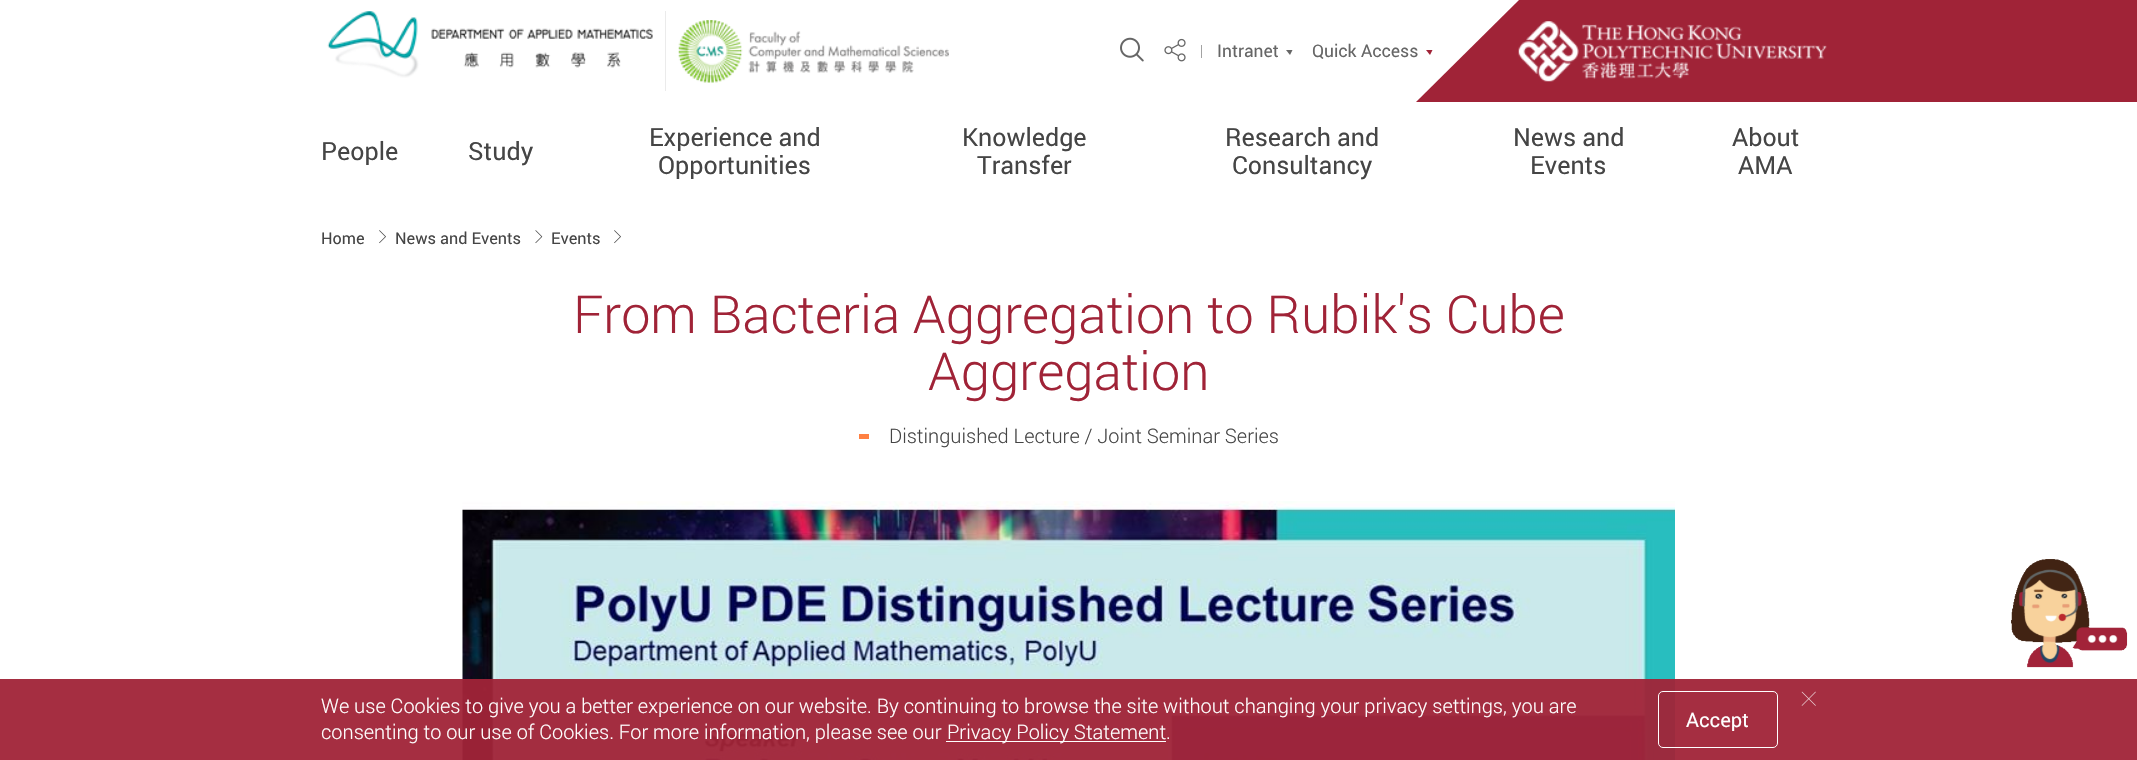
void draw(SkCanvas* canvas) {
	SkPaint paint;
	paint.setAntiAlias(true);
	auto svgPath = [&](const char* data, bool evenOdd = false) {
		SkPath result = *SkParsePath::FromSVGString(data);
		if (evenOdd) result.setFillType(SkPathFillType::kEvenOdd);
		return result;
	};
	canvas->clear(0xffffffff);
	canvas->drawImageRect(SkImages::DeferredFromEncodedData(SkData::MakeFromFileName("img1.png")), SkRect::MakeXYWH(327, 11, 326, 67), SkSamplingOptions());
	paint.setColor(0xffebebeb);
	canvas->drawRect(SkRect::MakeXYWH(665, 11, 1, 80), paint);
	canvas->drawImageRect(SkImages::DeferredFromEncodedData(SkData::MakeFromFileName("img2.png")), SkRect::MakeXYWH(678, 20, 271, 63), SkSamplingOptions());
	canvas->drawImageRect(SkImages::DeferredFromEncodedData(SkData::MakeFromFileName("img3.png")), SkRect::MakeXYWH(1120, 37, 24, 25), SkSamplingOptions());
	canvas->drawImageRect(SkImages::DeferredFromEncodedData(SkData::MakeFromFileName("img4.png")), SkRect::MakeXYWH(1164, 38, 22, 24), SkSamplingOptions());
	paint.setColor(0xffa3a3a3);
	canvas->drawRect(SkRect::MakeXYWH(1201, 45, 1, 13), paint);
	SkFont f1(fontMgr->matchFamilyStyle("Roboto", SkFontStyle::Normal()), 17.5);
	f1.setSubpixel(true);
	paint.setColor(0xff666666);
	canvas->drawString("Intranet", 1217, 57, f1, paint);
	canvas->drawPath(svgPath("M1286 50H1292.5L1290 55Z"), paint);
	canvas->drawString("Quick Access", 1312, 57, f1, paint);
	paint.setColor(0xffa02337);
	canvas->drawPath(svgPath("M1426 50H1432.5L1430 55Z"), paint);
	canvas->drawPath(svgPath("M1519 0H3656L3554 102H1416Z"), paint);
	canvas->drawImageRect(SkImages::DeferredFromEncodedData(SkData::MakeFromFileName("img5.png")), SkRect::MakeXYWH(1518, 21, 309, 61), SkSamplingOptions());
	SkFont f2(fontMgr->matchFamilyStyle("Roboto", SkFontStyle::Normal()), 25);
	f2.setSubpixel(true);
	paint.setColor(0xff454545);
	canvas->drawString("People", 321, 160, f2, paint);
	canvas->drawString("Study", 468, 160, f2, paint);
	canvas->drawString("Experience and", 649, 146, f2, paint);
	canvas->drawString("Opportunities", 658, 174, f2, paint);
	canvas->drawString("Knowledge", 962, 146, f2, paint);
	canvas->drawString("Transfer", 977, 174, f2, paint);
	canvas->drawString("Research and", 1225, 146, f2, paint);
	canvas->drawString("Consultancy", 1232, 174, f2, paint);
	canvas->drawString("News and", 1513, 146, f2, paint);
	canvas->drawString("Events", 1530, 174, f2, paint);
	canvas->drawString("About", 1732, 146, f2, paint);
	canvas->drawString("AMA", 1738, 174, f2, paint);
	SkFont f3(fontMgr->matchFamilyStyle("Roboto", SkFontStyle::Normal()), 16.25);
	f3.setSubpixel(true);
	canvas->drawString("Home", 321, 244, f3, paint);
	canvas->drawImageRect(SkImages::DeferredFromEncodedData(SkData::MakeFromFileName("img6.png")), SkRect::MakeXYWH(379, 230, 7, 14), SkSamplingOptions());
	canvas->drawString("News and Events", 395, 244, f3, paint);
	canvas->drawImageRect(SkImages::DeferredFromEncodedData(SkData::MakeFromFileName("img7.png")), SkRect::MakeXYWH(535, 230, 8, 14), SkSamplingOptions());
	canvas->drawString("Events", 551, 244, f3, paint);
	canvas->drawImageRect(SkImages::DeferredFromEncodedData(SkData::MakeFromFileName("img6.png")), SkRect::MakeXYWH(614, 230, 7, 14), SkSamplingOptions());
	SkFont f4(fontMgr->matchFamilyStyle("Roboto", SkFontStyle(300, SkFontStyle::kNormal_Width, SkFontStyle::kUpright_Slant)), 52.5);
	f4.setSubpixel(true);
	paint.setColor(0xffa02337);
	canvas->drawString("From Bacteria Aggregation to Rubik's Cube", 573, 333, f4, paint);
	canvas->drawString("Aggregation", 928, 390, f4, paint);
	paint.setColor(0xffff8042);
	canvas->drawRect(SkRect::MakeXYWH(859, 434, 10, 5), paint);
	SkFont f5(fontMgr->matchFamilyStyle("Roboto", SkFontStyle(300, SkFontStyle::kNormal_Width, SkFontStyle::kUpright_Slant)), 20);
	f5.setSubpixel(true);
	paint.setColor(0xff454545);
	canvas->drawString("Distinguished Lecture / Joint Seminar Series", 889, 443, f5, paint);
	canvas->drawImageRect(SkImages::DeferredFromEncodedData(SkData::MakeFromFileName("img8.png")), SkRect::MakeXYWH(462, 501, 1213, 259), SkSamplingOptions());
	canvas->drawImageRect(SkImages::DeferredFromEncodedData(SkData::MakeFromFileName("img9.png")), SkRect::MakeXYWH(2011, 559, 117, 109), SkSamplingOptions());
	paint.setColor(0xf2a02337);
	canvas->drawRect(SkRect::MakeXYWH(0, 679, 2137, 81), paint);
	paint.setColor(0xffffffff);
	canvas->drawString("We use Cookies to give you a better experience on our website. By continuing to browse the site without changing your privacy settings, you are", 321, 713, f5, paint);
	canvas->drawString("consenting to our use of Cookies. For more information, please see our", 321, 739, f5, paint);
	canvas->drawRect(SkRect::MakeXYWH(946, 741, 220, 1), paint);
	canvas->drawString("Privacy Policy Statement.", 947, 739, f5, paint);
	paint.setStroke(true);
	paint.setStrokeWidth(1);
	canvas->drawRoundRect(SkRect::MakeXYWH(1658.5, 691.5, 119, 56), 4.5, 4.5, paint);
	SkFont f6(fontMgr->matchFamilyStyle("Roboto", SkFontStyle::Normal()), 20);
	f6.setSubpixel(true);
	paint.setStroke(false);
	canvas->drawString("Accept", 1686, 727, f6, paint);
	canvas->drawImageRect(SkImages::DeferredFromEncodedData(SkData::MakeFromFileName("img10.png")), SkRect::MakeXYWH(1801, 691, 15, 15), SkSamplingOptions());
}
